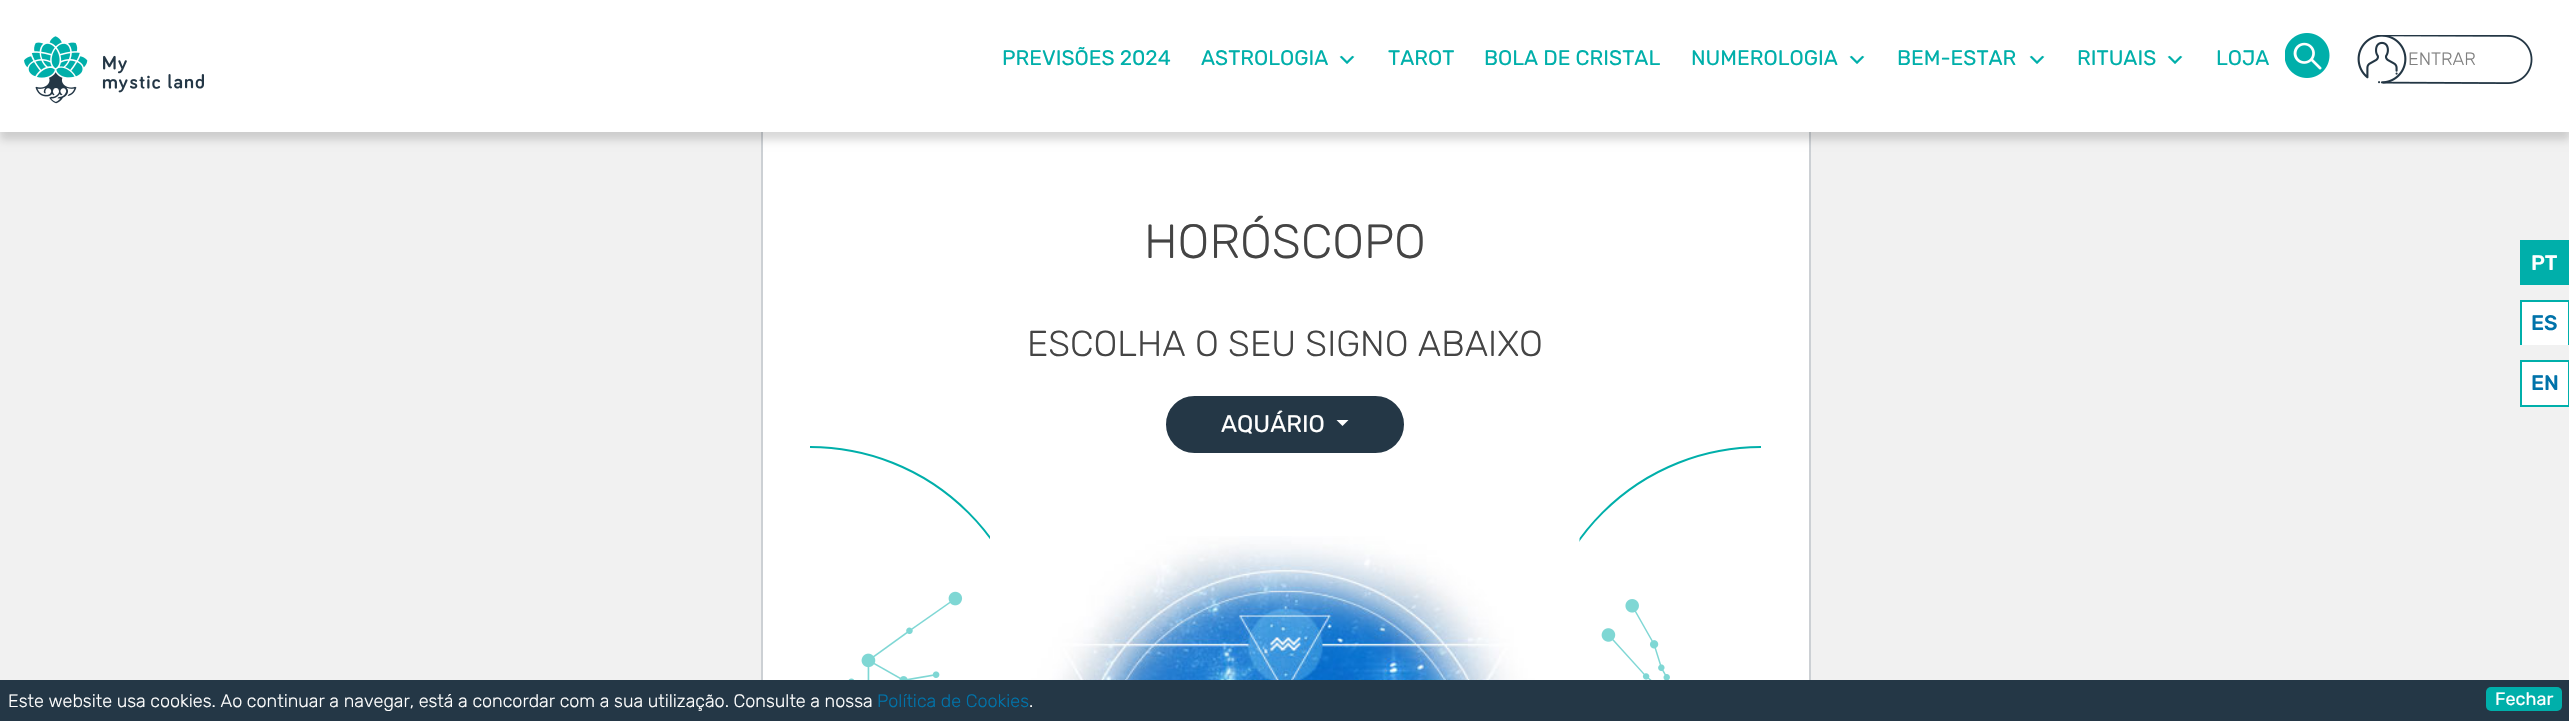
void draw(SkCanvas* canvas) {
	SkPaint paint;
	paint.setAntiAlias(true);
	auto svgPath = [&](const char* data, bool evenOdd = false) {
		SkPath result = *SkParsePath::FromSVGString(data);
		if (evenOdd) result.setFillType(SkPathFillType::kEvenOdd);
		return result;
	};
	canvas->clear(0xfff1f1f1);
	paint.setColor(0xffffffff);
	canvas->drawRect(SkRect::MakeXYWH(763, 132, 1046, 548), paint);
	paint.setStroke(true);
	paint.setStrokeWidth(2);
	paint.setColor(0xffccd0d4);
	canvas->drawRect(SkRect::MakeXYWH(762, 76, 1048, 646), paint);
	paint.setStroke(false);
	paint.setColor(0x26000000);
	paint.setMaskFilter(SkMaskFilter::MakeBlur(kNormal_SkBlurStyle, 4));
	canvas->drawRect(SkRect::MakeXYWH(0, 8, 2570, 132), paint);
	paint.setMaskFilter(nullptr);
	paint.setColor(0xffffffff);
	canvas->drawRect(SkRect::MakeXYWH(0, 0, 2569, 132), paint);
	canvas->drawImageRect(SkImages::DeferredFromEncodedData(SkData::MakeFromFileName("img1.png")), SkRect::MakeXYWH(24, 36, 180, 68), SkSamplingOptions());
	SkFont f1(fontMgr->matchFamilyStyle("Rubik", SkFontStyle::Normal()), 21);
	f1.setSubpixel(true);
	paint.setColor(0xff00afaa);
	canvas->drawString("PREVISÕES 2024", 1002, 65, f1, paint);
	canvas->drawString("ASTROLOGIA", 1201, 65, f1, paint);
	canvas->drawImageRect(SkImages::DeferredFromEncodedData(SkData::MakeFromFileName("img2.png")), SkRect::MakeXYWH(1339, 55, 16, 9), SkSamplingOptions());
	canvas->drawString("TAROT", 1388, 65, f1, paint);
	canvas->drawString("BOLA DE CRISTAL", 1484, 65, f1, paint);
	canvas->drawString("NUMEROLOGIA", 1691, 65, f1, paint);
	canvas->drawImageRect(SkImages::DeferredFromEncodedData(SkData::MakeFromFileName("img2.png")), SkRect::MakeXYWH(1849, 55, 16, 9), SkSamplingOptions());
	canvas->drawString("BEM-ESTAR", 1897, 65, f1, paint);
	canvas->drawImageRect(SkImages::DeferredFromEncodedData(SkData::MakeFromFileName("img2.png")), SkRect::MakeXYWH(2029, 55, 16, 9), SkSamplingOptions());
	canvas->drawString("RITUAIS", 2077, 65, f1, paint);
	canvas->drawImageRect(SkImages::DeferredFromEncodedData(SkData::MakeFromFileName("img2.png")), SkRect::MakeXYWH(2167, 55, 16, 9), SkSamplingOptions());
	canvas->drawString("LOJA", 2216, 65, f1, paint);
	canvas->drawImageRect(SkImages::DeferredFromEncodedData(SkData::MakeFromFileName("img3.png")), SkRect::MakeXYWH(2285, 33, 45, 45), SkSamplingOptions());
	canvas->drawImageRect(SkImages::DeferredFromEncodedData(SkData::MakeFromFileName("img4.png")), SkRect::MakeXYWH(2357, 35, 176, 49), SkSamplingOptions());
	SkFont f2(fontMgr->matchFamilyStyle("Rubik", SkFontStyle(300, SkFontStyle::kNormal_Width, SkFontStyle::kUpright_Slant)), 18);
	f2.setSubpixel(true);
	paint.setColor(0xff808080);
	canvas->drawString("ENTRAR", 2408, 65, f2, paint);
	paint.setColor(0xff00afaa);
	canvas->drawRect(SkRect::MakeXYWH(2520, 240, 49, 45), paint);
	SkFont f3(fontMgr->matchFamilyStyle("Rubik", SkFontStyle(500, SkFontStyle::kNormal_Width, SkFontStyle::kUpright_Slant)), 21);
	f3.setSubpixel(true);
	paint.setColor(0xffffffff);
	canvas->drawString("PT", 2531, 270, f3, paint);
	canvas->drawRect(SkRect::MakeXYWH(2522, 302, 46, 43), paint);
	paint.setColor(0xff00afaa);
	canvas->drawRect(SkRect::MakeXYWH(2520, 300, 49, 2), paint);
	canvas->drawRect(SkRect::MakeXYWH(2568, 300, 1, 45), paint);
	canvas->drawRect(SkRect::MakeXYWH(2520, 300, 2, 45), paint);
	paint.setColor(0xff0073aa);
	canvas->drawString("ES", 2531, 330, f3, paint);
	paint.setColor(0xffffffff);
	canvas->drawRect(SkRect::MakeXYWH(2521, 361, 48, 45), paint);
	paint.setStroke(true);
	paint.setColor(0xff00afaa);
	canvas->drawRect(SkRect::MakeXYWH(2521, 361, 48, 45), paint);
	paint.setStroke(false);
	paint.setColor(0xff0073aa);
	canvas->drawString("EN", 2531, 390, f3, paint);
	canvas->save();
	canvas->clipRect(SkRect::MakeXYWH(810, 146, 951, 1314));
	paint.setStroke(true);
	paint.setColor(0xff00afaa);
	canvas->drawCircle(810, 671, 224, paint);
	canvas->drawCircle(1761, 671, 224, paint);
	canvas->restore();
	paint.setStroke(false);
	paint.setColor(0xff243746);
	canvas->drawRect(SkRect::MakeXYWH(0, 680, 2569, 41), paint);
	paint.setColor(0xffffffff);
	canvas->drawString("Este website usa cookies. Ao continuar a navegar, está a concordar com a sua utilização. Consulte a nossa", 8, 707, f2, paint);
	paint.setColor(0xff0073aa);
	canvas->drawString("Política de Cookies", 877, 707, f2, paint);
	paint.setColor(0xffffffff);
	canvas->drawString(".", 1029, 707, f2, paint);
	paint.setColor(0xff00afaa);
	canvas->drawRoundRect(SkRect::MakeXYWH(2486, 687, 76, 24), 5, 5, paint);
	SkFont f4(fontMgr->matchFamilyStyle("Rubik", SkFontStyle::Normal()), 18);
	f4.setSubpixel(true);
	paint.setColor(0xffffffff);
	canvas->drawString("Fechar", 2495, 705, f4, paint);
	SkFont f5(fontMgr->matchFamilyStyle("Rubik", SkFontStyle(300, SkFontStyle::kNormal_Width, SkFontStyle::kUpright_Slant)), 48);
	f5.setSubpixel(true);
	paint.setColor(0xff444444);
	canvas->drawString("HORÓSCOPO", 1144, 258, f5, paint);
	SkFont f6(fontMgr->matchFamilyStyle("Rubik", SkFontStyle(300, SkFontStyle::kNormal_Width, SkFontStyle::kUpright_Slant)), 36);
	f6.setSubpixel(true);
	canvas->drawString("ESCOLHA O SEU SIGNO ABAIXO", 1027, 356, f6, paint);
	paint.setColor(0xff243746);
	canvas->drawRoundRect(SkRect::MakeXYWH(1167, 397, 236, 55), 27.5, 27.5, paint);
	paint.setStroke(true);
	canvas->drawRoundRect(SkRect::MakeXYWH(1167, 397, 236, 55), 27.5, 27.5, paint);
	SkFont f7(fontMgr->matchFamilyStyle("Rubik", SkFontStyle::Normal()), 24);
	f7.setSubpixel(true);
	paint.setStroke(false);
	paint.setColor(0xffffffff);
	canvas->drawString("AQUÁRIO", 1221, 432, f7, paint);
	canvas->drawPath(svgPath("M1336.5 420H1348.5L1342.5 426Z"), paint);
	canvas->drawImageRect(SkImages::DeferredFromEncodedData(SkData::MakeFromFileName("img5.png")), SkRect::MakeXYWH(848, 591, 115, 89), SkSamplingOptions());
	canvas->drawImageRect(SkImages::DeferredFromEncodedData(SkData::MakeFromFileName("img6.png")), SkRect::MakeXYWH(990, 536, 590, 144), SkSamplingOptions());
	canvas->drawImageRect(SkImages::DeferredFromEncodedData(SkData::MakeFromFileName("img7.png")), SkRect::MakeXYWH(1601, 599, 69, 81), SkSamplingOptions());
}
